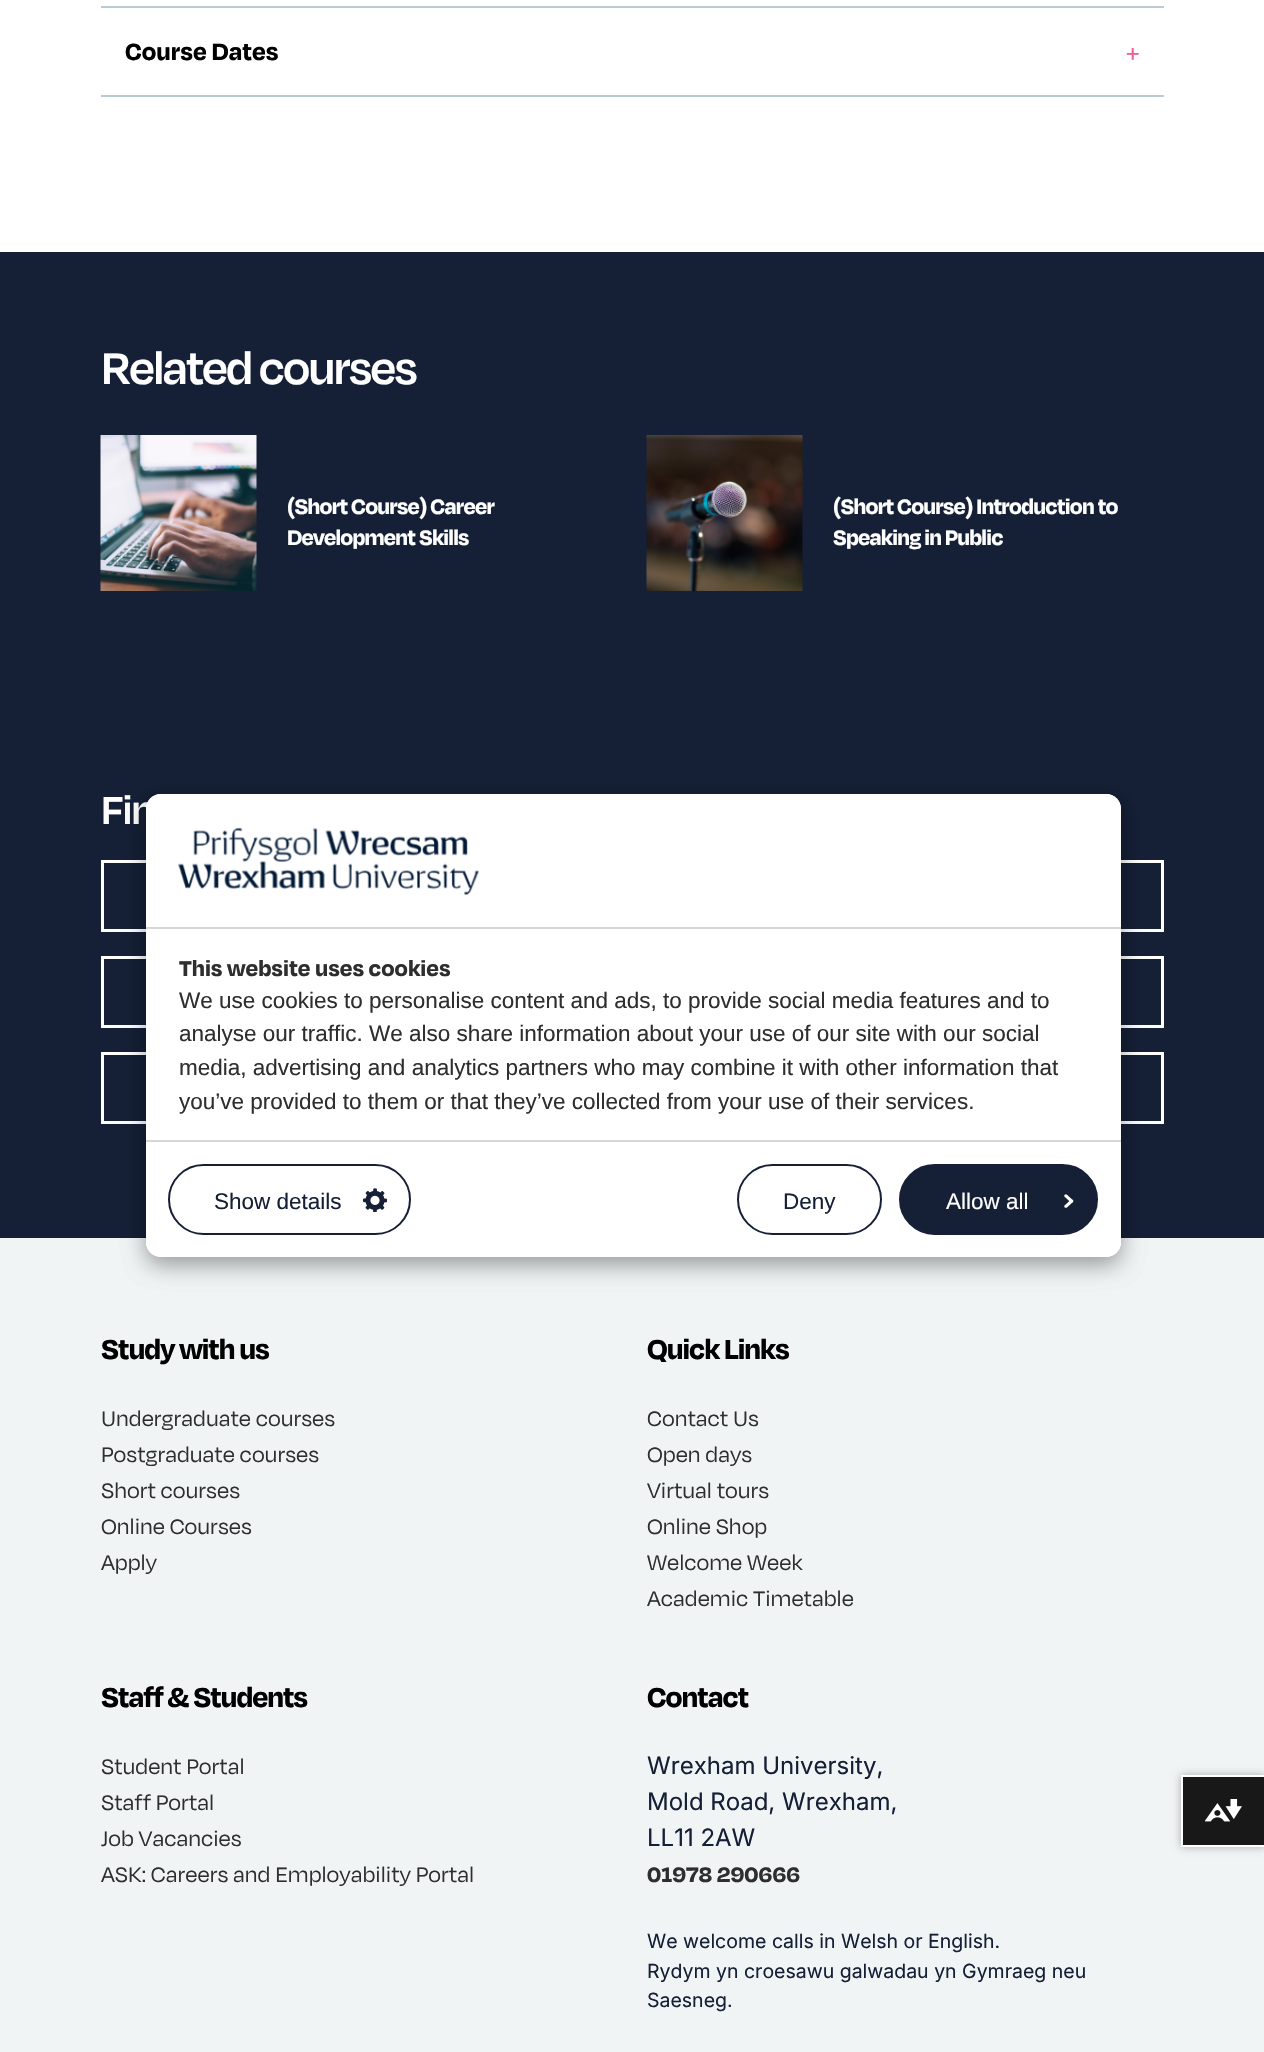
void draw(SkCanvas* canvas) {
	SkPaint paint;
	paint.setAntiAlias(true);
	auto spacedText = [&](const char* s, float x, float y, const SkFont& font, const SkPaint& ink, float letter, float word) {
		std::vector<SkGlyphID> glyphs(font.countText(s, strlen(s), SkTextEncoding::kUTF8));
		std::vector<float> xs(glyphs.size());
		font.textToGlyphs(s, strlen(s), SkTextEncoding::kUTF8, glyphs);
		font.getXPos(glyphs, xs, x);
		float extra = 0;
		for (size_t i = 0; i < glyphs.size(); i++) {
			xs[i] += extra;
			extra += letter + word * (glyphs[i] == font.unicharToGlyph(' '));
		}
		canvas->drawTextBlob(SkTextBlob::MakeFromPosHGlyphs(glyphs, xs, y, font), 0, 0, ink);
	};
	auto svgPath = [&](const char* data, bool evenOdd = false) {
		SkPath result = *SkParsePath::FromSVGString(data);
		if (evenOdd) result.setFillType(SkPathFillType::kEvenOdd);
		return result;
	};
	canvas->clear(0xfff0f4f5);
	paint.setColor(0xffffffff);
	canvas->drawRect(SkRect::MakeXYWH(0, 0, 1264, 252), paint);
	paint.setColor(0xffb8ccd1);
	canvas->drawRect(SkRect::MakeXYWH(101, 6, 1063, 2), paint);
	canvas->drawRect(SkRect::MakeXYWH(101, 95, 1063, 2), paint);
	SkFont f1(fontMgr->matchFamilyStyle("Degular", SkFontStyle::Bold()), 27);
	f1.setSubpixel(true);
	paint.setColor(0xff000000);
	canvas->drawString("Course Dates", 125, 60, f1, paint);
	SkFont f2(fontMgr->matchFamilyStyle("Degular", SkFontStyle::Normal()), 27);
	f2.setSubpixel(true);
	paint.setColor(0xffeb5e94);
	canvas->drawString("+", 1126, 62, f2, paint);
	paint.setColor(0xff151f35);
	canvas->drawRect(SkRect::MakeXYWH(0, 252, 1264, 986), paint);
	SkFont f3(fontMgr->matchFamilyStyle("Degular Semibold", SkFontStyle(600, SkFontStyle::kNormal_Width, SkFontStyle::kUpright_Slant)), 51);
	f3.setSubpixel(true);
	paint.setColor(0xffffffff);
	spacedText("Related courses", 101, 384, f3, paint, -2, 0);
	canvas->drawImageRect(SkImages::DeferredFromEncodedData(SkData::MakeFromFileName("img1.png")), SkRect::MakeXYWH(100, 435, 157, 156), SkSamplingOptions());
	SkFont f4(fontMgr->matchFamilyStyle("Degular", SkFontStyle::Bold()), 24);
	f4.setSubpixel(true);
	spacedText("(Short Course) Career", 287, 514, f4, paint, -0.75, 0);
	spacedText("Development Skills", 287, 545, f4, paint, -0.75, 0);
	canvas->drawImageRect(SkImages::DeferredFromEncodedData(SkData::MakeFromFileName("img2.png")), SkRect::MakeXYWH(646, 435, 157, 156), SkSamplingOptions());
	spacedText("(Short Course) Introduction to", 833, 514, f4, paint, -0.75, 0);
	spacedText("Speaking in Public", 833, 545, f4, paint, -0.75, 0);
	SkFont f5(fontMgr->matchFamilyStyle("Degular Semibold", SkFontStyle(600, SkFontStyle::kNormal_Width, SkFontStyle::kUpright_Slant)), 45);
	f5.setSubpixel(true);
	spacedText("Fin", 101, 824, f5, paint, -1.5, 0);
	paint.setStroke(true);
	paint.setStrokeWidth(3);
	canvas->drawRect(SkRect::MakeXYWH(102.5, 861.5, 1060, 69), paint);
	canvas->drawRect(SkRect::MakeXYWH(102.5, 957.5, 1060, 69), paint);
	canvas->drawRect(SkRect::MakeXYWH(102.5, 1053.5, 1060, 69), paint);
	paint.setStroke(false);
	paint.setColor(0x30000000);
	paint.setMaskFilter(SkMaskFilter::MakeBlur(kNormal_SkBlurStyle, 11));
	canvas->drawRoundRect(SkRect::MakeXYWH(146, 801, 975, 464), 15, 15, paint);
	paint.setMaskFilter(nullptr);
	paint.setColor(0x33000000);
	paint.setMaskFilter(SkMaskFilter::MakeBlur(kNormal_SkBlurStyle, 11));
	canvas->drawRoundRect(SkRect::MakeXYWH(146, 801, 975, 464), 15, 15, paint);
	paint.setMaskFilter(nullptr);
	paint.setColor(0xffffffff);
	canvas->drawRoundRect(SkRect::MakeXYWH(146, 794, 975, 463), 15, 15, paint);
	canvas->drawPath(svgPath("M161 794H1106C1114.5 794 1121 800.5 1121 809V929H146V809C146 800.5 152.5 794 161 794Z"), paint);
	paint.setColor(0xffd6d6d6);
	canvas->drawRect(SkRect::MakeXYWH(146, 927, 975, 2), paint);
	canvas->drawImageRect(SkImages::DeferredFromEncodedData(SkData::MakeFromFileName("img3.png")), SkRect::MakeXYWH(178, 827, 301, 68), SkSamplingOptions());
	SkFont f6(fontMgr->matchFamilyStyle("Degular", SkFontStyle::Bold()), 24.75);
	f6.setSubpixel(true);
	paint.setColor(0xff2e2e2e);
	canvas->drawString("This website uses cookies", 179, 976, f6, paint);
	SkFont f7(fontMgr->matchFamilyStyle("Liberation Sans", SkFontStyle::Normal()), 22.5);
	f7.setSubpixel(true);
	canvas->drawString("We use cookies to personalise content and ads, to provide social media features and to", 179, 1008, f7, paint);
	canvas->drawString("analyse our traffic. We also share information about your use of our site with our social", 179, 1041, f7, paint);
	canvas->drawString("media, advertising and analytics partners who may combine it with other information that", 179, 1075, f7, paint);
	canvas->drawString("you’ve provided to them or that they’ve collected from your use of their services.", 179, 1109, f7, paint);
	paint.setColor(0xffffffff);
	canvas->drawPath(svgPath("M146 1140H1121V1242C1121 1250.5 1114.5 1257 1106 1257H161C152.5 1257 146 1250.5 146 1242Z"), paint);
	paint.setColor(0xffd6d6d6);
	canvas->drawRect(SkRect::MakeXYWH(146, 1140, 975, 2), paint);
	paint.setStroke(true);
	paint.setStrokeWidth(2);
	paint.setColor(0xff151f35);
	canvas->drawRoundRect(SkRect::MakeXYWH(169, 1165, 241, 69), 34.5, 34.5, paint);
	paint.setStroke(false);
	canvas->drawString("Show details", 214, 1209, f7, paint);
	canvas->drawImageRect(SkImages::DeferredFromEncodedData(SkData::MakeFromFileName("img4.png")), SkRect::MakeXYWH(363, 1188, 24, 24), SkSamplingOptions());
	paint.setStroke(true);
	canvas->drawRoundRect(SkRect::MakeXYWH(738, 1165, 143, 69), 34.5, 34.5, paint);
	paint.setStroke(false);
	canvas->drawString("Deny", 783, 1209, f7, paint);
	canvas->drawRoundRect(SkRect::MakeXYWH(900, 1165, 197, 69), 34.5, 34.5, paint);
	paint.setStroke(true);
	canvas->drawRoundRect(SkRect::MakeXYWH(900, 1165, 197, 69), 34.5, 34.5, paint);
	paint.setStroke(false);
	paint.setColor(0xffffffff);
	canvas->drawString("Allow all", 946, 1209, f7, paint);
	canvas->drawImageRect(SkImages::DeferredFromEncodedData(SkData::MakeFromFileName("img5.png")), SkRect::MakeXYWH(1064, 1194, 10, 14), SkSamplingOptions());
	SkFont f8(fontMgr->matchFamilyStyle("Degular", SkFontStyle::Bold()), 31.5);
	f8.setSubpixel(true);
	paint.setColor(0xff000000);
	spacedText("Study with us", 101, 1359, f8, paint, -1, 0);
	SkFont f9(fontMgr->matchFamilyStyle("Degular", SkFontStyle::Normal()), 24);
	f9.setSubpixel(true);
	paint.setColor(0xff2e2e2e);
	canvas->drawString("Undergraduate courses", 101, 1426, f9, paint);
	canvas->drawString("Postgraduate courses", 101, 1462, f9, paint);
	canvas->drawString("Short courses", 101, 1498, f9, paint);
	canvas->drawString("Online Courses", 101, 1534, f9, paint);
	canvas->drawString("Apply", 101, 1570, f9, paint);
	paint.setColor(0xff000000);
	spacedText("Quick Links", 647, 1359, f8, paint, -1, 0);
	paint.setColor(0xff2e2e2e);
	canvas->drawString("Contact Us", 647, 1426, f9, paint);
	canvas->drawString("Open days", 647, 1462, f9, paint);
	canvas->drawString("Virtual tours", 647, 1498, f9, paint);
	canvas->drawString("Online Shop", 647, 1534, f9, paint);
	canvas->drawString("Welcome Week", 647, 1570, f9, paint);
	canvas->drawString("Academic Timetable", 647, 1606, f9, paint);
	paint.setColor(0xff000000);
	spacedText("Staff & Students", 101, 1707, f8, paint, -1, 0);
	paint.setColor(0xff2e2e2e);
	canvas->drawString("Student Portal", 101, 1774, f9, paint);
	canvas->drawString("Staff Portal", 101, 1810, f9, paint);
	canvas->drawString("Job Vacancies", 101, 1846, f9, paint);
	canvas->drawString("ASK: Careers and Employability Portal", 101, 1882, f9, paint);
	paint.setColor(0xff000000);
	spacedText("Contact", 647, 1707, f8, paint, -1, 0);
	SkFont f10(fontMgr->matchFamilyStyle("Inter", SkFontStyle::Normal()), 24);
	f10.setSubpixel(true);
	paint.setColor(0xff151f35);
	canvas->drawString("Wrexham University,", 647, 1774, f10, paint);
	canvas->drawString("Mold Road, Wrexham,", 647, 1810, f10, paint);
	canvas->drawString("LL11 2AW", 647, 1846, f10, paint);
	paint.setColor(0xff2e2e2e);
	canvas->drawString("01978 290666", 647, 1882, f4, paint);
	SkFont f11(fontMgr->matchFamilyStyle("Inter", SkFontStyle::Normal()), 19.5);
	f11.setSubpixel(true);
	paint.setColor(0xff151f35);
	canvas->drawString("We welcome calls in Welsh or English.", 647, 1948, f11, paint);
	canvas->drawString("Rydym yn croesawu galwadau yn Gymraeg neu", 647, 1978, f11, paint);
	canvas->drawString("Saesneg.", 647, 2007, f11, paint);
	canvas->save();
	canvas->clipPath(svgPath("M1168 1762H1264V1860H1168ZM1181 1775H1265V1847H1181Z", true), true);
	paint.setColor(0x4d000000);
	paint.setMaskFilter(SkMaskFilter::MakeBlur(kNormal_SkBlurStyle, 4));
	canvas->drawRect(SkRect::MakeXYWH(1181, 1775, 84, 72), paint);
	paint.setMaskFilter(nullptr);
	canvas->restore();
	paint.setColor(0xe6000000);
	canvas->drawRect(SkRect::MakeXYWH(1183, 1777, 81, 68), paint);
	paint.setColor(0xffffffff);
	canvas->drawRect(SkRect::MakeXYWH(1181, 1775, 83, 2), paint);
	canvas->drawRect(SkRect::MakeXYWH(1181, 1845, 83, 2), paint);
	canvas->drawRect(SkRect::MakeXYWH(1181, 1775, 2, 72), paint);
	canvas->drawImageRect(SkImages::DeferredFromEncodedData(SkData::MakeFromFileName("img6.png")), SkRect::MakeXYWH(1205, 1799, 37, 23), SkSamplingOptions());
}
